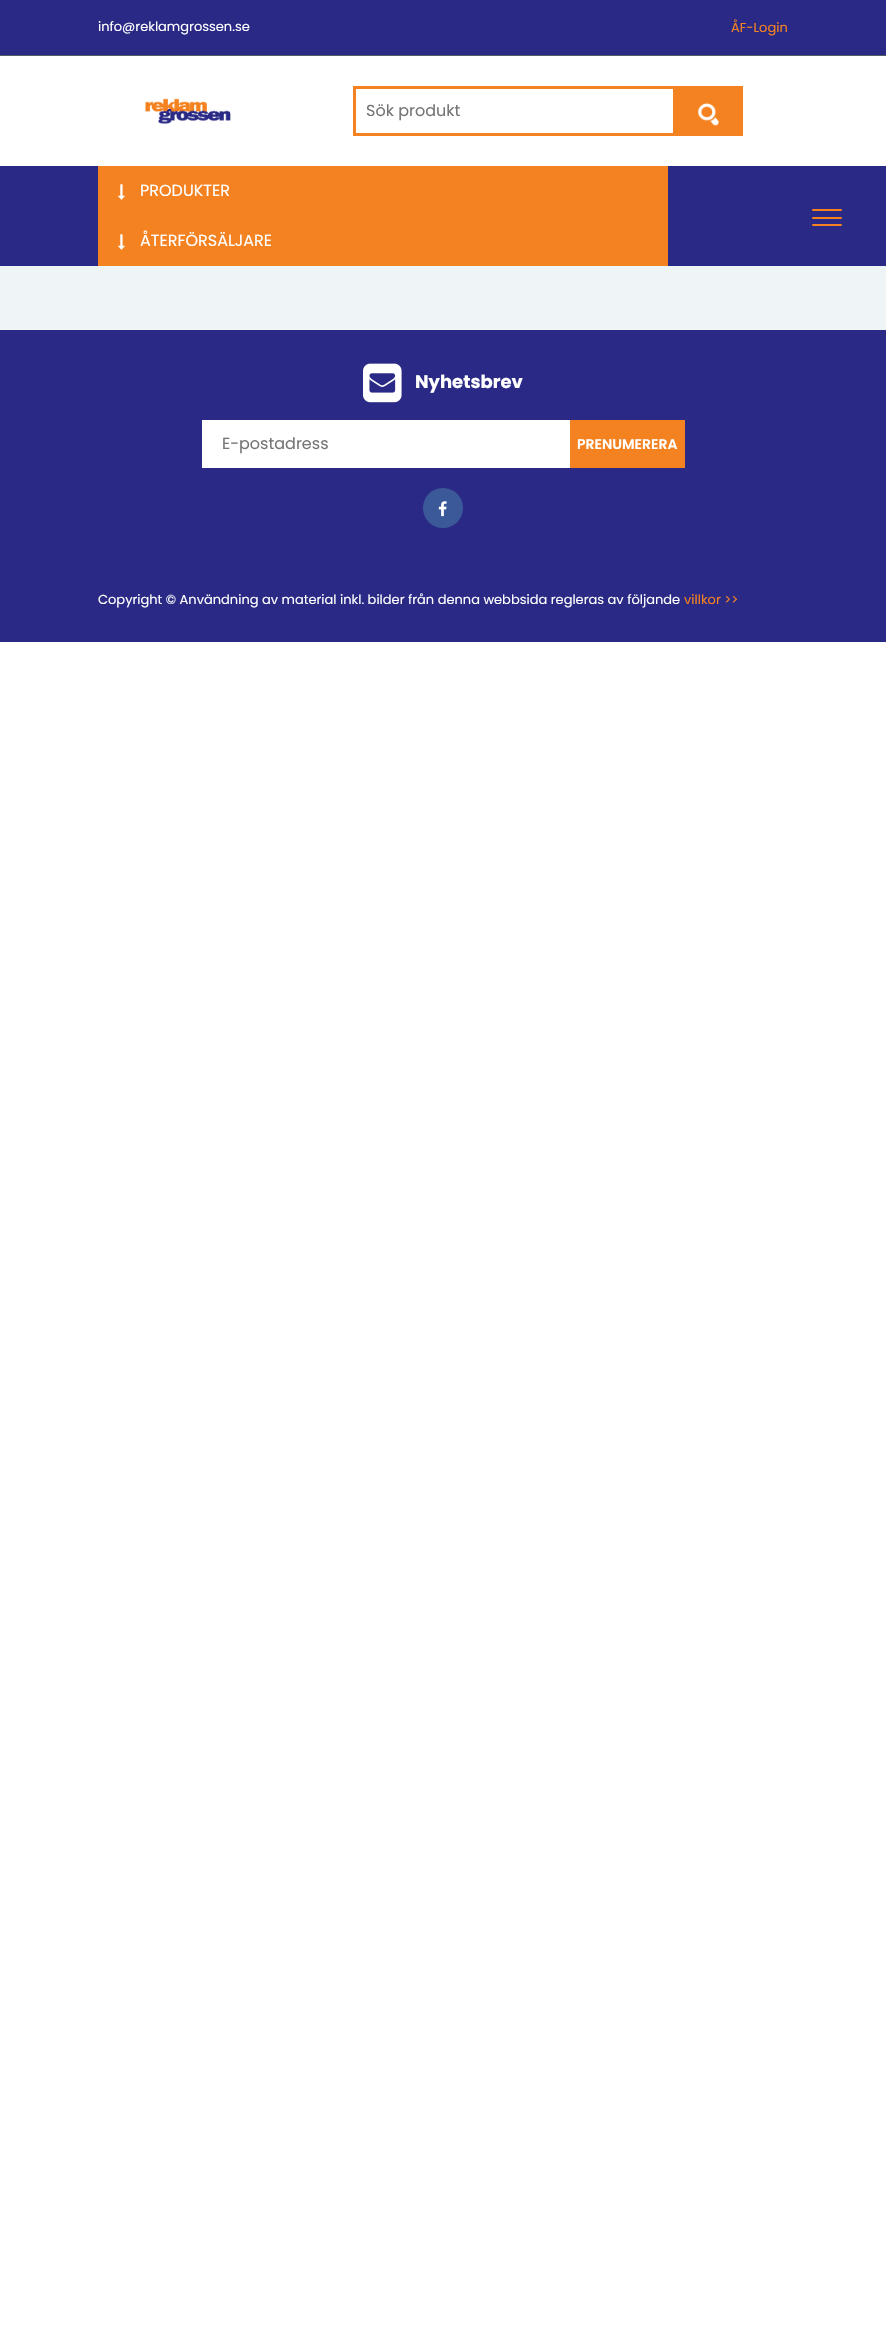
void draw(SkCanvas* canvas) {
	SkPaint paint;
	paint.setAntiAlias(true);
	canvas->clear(0xffffffff);
	paint.setColor(0xff2a2a86);
	canvas->drawRect(SkRect::MakeXYWH(0, 0, 886, 55), paint);
	paint.setColor(0xff525d64);
	canvas->drawRect(SkRect::MakeXYWH(0, 55, 886, 1), paint);
	SkFont f1(fontMgr->matchFamilyStyle("Poppins", SkFontStyle::Normal()), 13);
	f1.setSubpixel(true);
	paint.setColor(0xffffffff);
	canvas->drawString("info@reklamgrossen.se", 98, 31, f1, paint);
	paint.setColor(0xfff58220);
	canvas->drawString("ÅF-Login", 731, 32, f1, paint);
	canvas->drawImageRect(SkImages::DeferredFromEncodedData(SkData::MakeFromFileName("img1.png")), SkRect::MakeXYWH(145, 98, 86, 26), SkSamplingOptions());
	paint.setStroke(true);
	paint.setStrokeWidth(3);
	canvas->drawRect(SkRect::MakeXYWH(354.5, 87.5, 387, 47), paint);
	SkFont f2(fontMgr->matchFamilyStyle("Poppins", SkFontStyle::Normal()), 16);
	f2.setSubpixel(true);
	paint.setStroke(false);
	paint.setColor(0xff757575);
	canvas->drawString("Sök produkt", 366, 116, f2, paint);
	paint.setColor(0xfff58220);
	canvas->drawRect(SkRect::MakeXYWH(673, 89, 67, 44), paint);
	canvas->drawImageRect(SkImages::DeferredFromEncodedData(SkData::MakeFromFileName("img2.png")), SkRect::MakeXYWH(697, 103, 22, 23), SkSamplingOptions());
	paint.setColor(0xff2a2a86);
	canvas->drawRect(SkRect::MakeXYWH(0, 166, 886, 100), paint);
	paint.setColor(0xfff58220);
	canvas->drawRect(SkRect::MakeXYWH(98, 166, 570, 100), paint);
	canvas->drawImageRect(SkImages::DeferredFromEncodedData(SkData::MakeFromFileName("img3.png")), SkRect::MakeXYWH(118, 184, 7, 16), SkSamplingOptions());
	paint.setColor(0xffffffff);
	canvas->drawString("PRODUKTER", 140, 196, f2, paint);
	canvas->drawImageRect(SkImages::DeferredFromEncodedData(SkData::MakeFromFileName("img3.png")), SkRect::MakeXYWH(118, 234, 7, 16), SkSamplingOptions());
	canvas->drawString("ÅTERFÖRSÄLJARE", 140, 246, f2, paint);
	paint.setColor(0xfff58220);
	canvas->drawRoundRect(SkRect::MakeXYWH(812, 209, 30, 2), 1, 1, paint);
	canvas->drawRoundRect(SkRect::MakeXYWH(812, 217, 30, 2), 1, 1, paint);
	canvas->drawRoundRect(SkRect::MakeXYWH(812, 224, 30, 2), 1, 1, paint);
	paint.setColor(0xffeff4f7);
	canvas->drawRect(SkRect::MakeXYWH(0, 266, 886, 64), paint);
	paint.setColor(0xff2a2a86);
	canvas->drawRect(SkRect::MakeXYWH(0, 330, 886, 312), paint);
	canvas->drawImageRect(SkImages::DeferredFromEncodedData(SkData::MakeFromFileName("img4.png")), SkRect::MakeXYWH(363, 363, 39, 40), SkSamplingOptions());
	SkFont f3(fontMgr->matchFamilyStyle("Poppins", SkFontStyle::Bold()), 18);
	f3.setSubpixel(true);
	paint.setColor(0xffffffff);
	canvas->drawString("Nyhetsbrev", 415, 388, f3, paint);
	canvas->drawRect(SkRect::MakeXYWH(202, 420, 368, 48), paint);
	paint.setColor(0xff757575);
	canvas->drawString("E-postadress", 222, 449, f2, paint);
	paint.setColor(0xfff58220);
	canvas->drawRect(SkRect::MakeXYWH(570, 420, 115, 48), paint);
	SkFont f4(fontMgr->matchFamilyStyle("Poppins", SkFontStyle(600, SkFontStyle::kNormal_Width, SkFontStyle::kUpright_Slant)), 14);
	f4.setSubpixel(true);
	paint.setColor(0xffffffff);
	canvas->drawString("PRENUMERERA", 577, 449, f4, paint);
	paint.setColor(0xff3b5999);
	canvas->drawCircle(443, 508, 20, paint);
	canvas->drawImageRect(SkImages::DeferredFromEncodedData(SkData::MakeFromFileName("img5.png")), SkRect::MakeXYWH(438, 501, 9, 16), SkSamplingOptions());
	paint.setColor(0xffffffff);
	canvas->drawString("Copyright © Användning av material inkl. bilder från denna webbsida regleras av följande", 98, 604, f1, paint);
	paint.setColor(0xfff58220);
	canvas->drawString("villkor >>", 684, 604, f1, paint);
}
